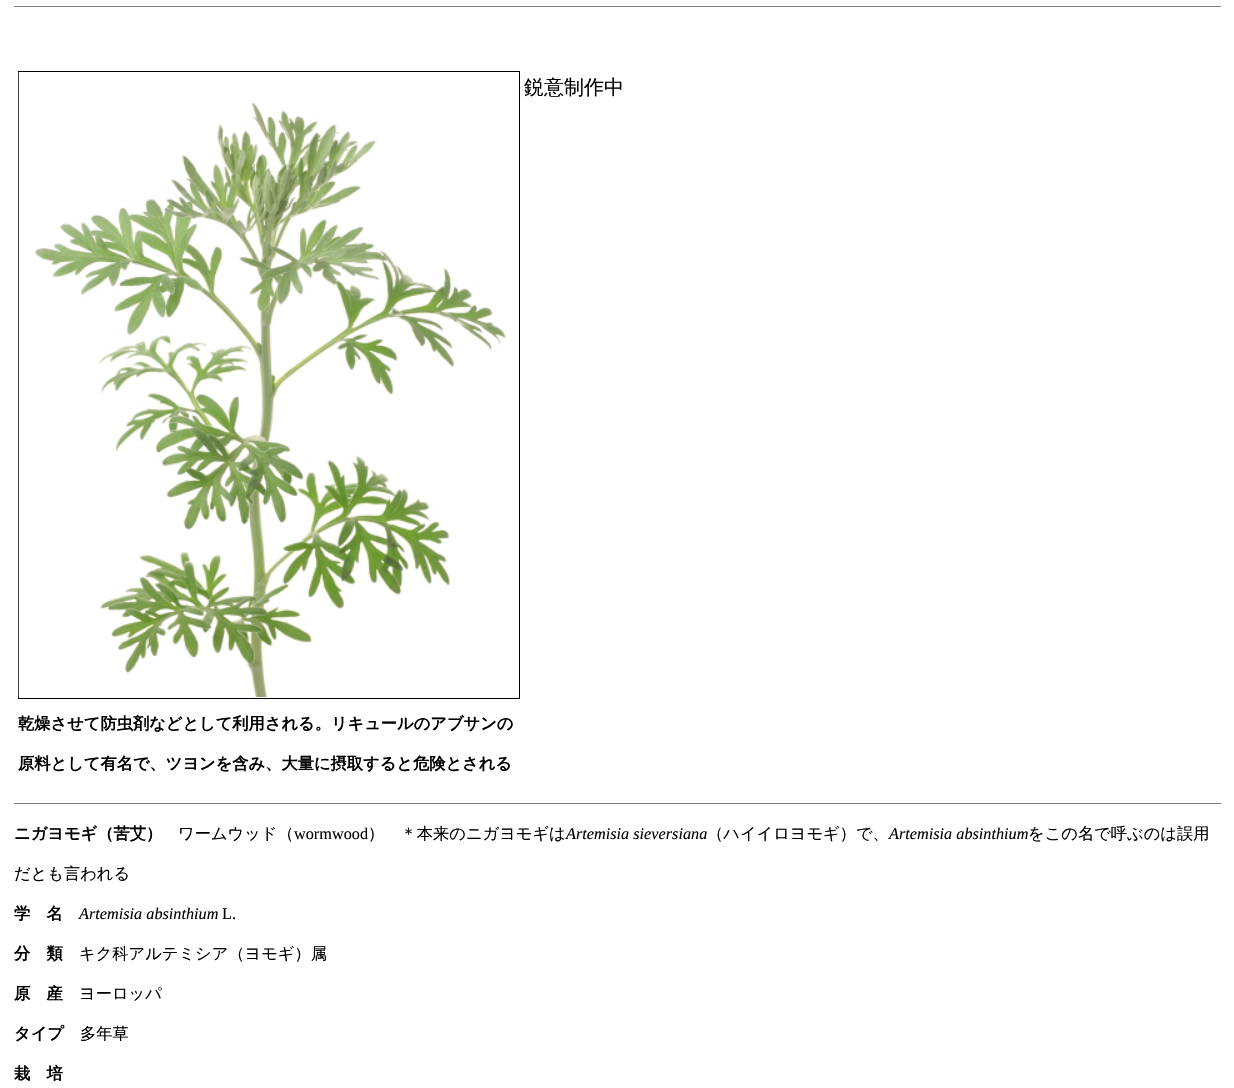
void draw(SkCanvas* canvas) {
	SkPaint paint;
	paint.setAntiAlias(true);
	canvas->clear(0xffffffff);
	paint.setColor(0xff808080);
	canvas->drawRect(SkRect::MakeXYWH(14, 6, 1207, 1), paint);
	SkFont f1(fontMgr->matchFamilyStyle("WenQuanYi Zen Hei", SkFontStyle(500, SkFontStyle::kNormal_Width, SkFontStyle::kUpright_Slant)), 20);
	f1.setSubpixel(true);
	paint.setColor(0xff000000);
	canvas->drawString("鋭意制作中", 524, 94, f1, paint);
	paint.setStroke(true);
	paint.setStrokeWidth(1);
	canvas->drawRect(SkRect::MakeXYWH(18.5, 71.5, 501, 627), paint);
	canvas->drawImageRect(SkImages::DeferredFromEncodedData(SkData::MakeFromFileName("img1.png")), SkRect::MakeXYWH(18, 72, 489, 625), SkSamplingOptions());
	SkFont f2(fontMgr->matchFamilyStyle("WenQuanYi Zen Hei", SkFontStyle::Bold()), 16.25);
	f2.setSubpixel(true);
	paint.setStroke(false);
	canvas->drawString("乾燥させて防虫剤などとして利用される。リキュールのアブサンの", 18, 729, f2, paint);
	canvas->drawString("原料として有名で、ツヨンを含み、大量に摂取すると危険とされる", 18, 769, f2, paint);
	paint.setColor(0xff808080);
	canvas->drawRect(SkRect::MakeXYWH(14, 803, 1207, 1), paint);
	paint.setColor(0xff000000);
	canvas->drawString("ニガヨモギ（苦艾）", 14, 839, f2, paint);
	SkFont f3(fontMgr->matchFamilyStyle("WenQuanYi Zen Hei", SkFontStyle(500, SkFontStyle::kNormal_Width, SkFontStyle::kUpright_Slant)), 16.25);
	f3.setSubpixel(true);
	canvas->drawString("ワームウッド（", 178, 839, f3, paint);
	SkFont f4(fontMgr->matchFamilyStyle("Liberation Serif", SkFontStyle::Normal()), 16.25);
	f4.setSubpixel(true);
	canvas->drawString("wormwood", 294, 839, f4, paint);
	canvas->drawString("）　＊本来のニガヨモギは", 368, 839, f3, paint);
	SkFont f5(fontMgr->matchFamilyStyle("Liberation Serif", SkFontStyle::Italic()), 16.25);
	f5.setSubpixel(true);
	canvas->drawString("Artemisia sieversiana", 566, 839, f5, paint);
	canvas->drawString("（ハイイロヨモギ）で、", 707, 839, f3, paint);
	canvas->drawString("Artemisia absinthium", 889, 839, f5, paint);
	canvas->drawString("をこの名で呼ぶのは誤用", 1028, 839, f3, paint);
	canvas->drawString("だとも言われる", 14, 879, f3, paint);
	canvas->drawString("学　名", 14, 919, f2, paint);
	canvas->drawString("Artemisia absinthium", 79, 919, f5, paint);
	canvas->drawString("L.", 222, 919, f4, paint);
	canvas->drawString("分　類", 14, 959, f2, paint);
	canvas->drawString("キク科アルテミシア（ヨモギ）属", 79, 959, f3, paint);
	canvas->drawString("原　産", 14, 999, f2, paint);
	canvas->drawString("ヨーロッパ", 79, 999, f3, paint);
	canvas->drawString("タイプ", 14, 1039, f2, paint);
	canvas->drawString("多年草", 80, 1039, f3, paint);
	canvas->drawString("栽　培", 14, 1079, f2, paint);
}
